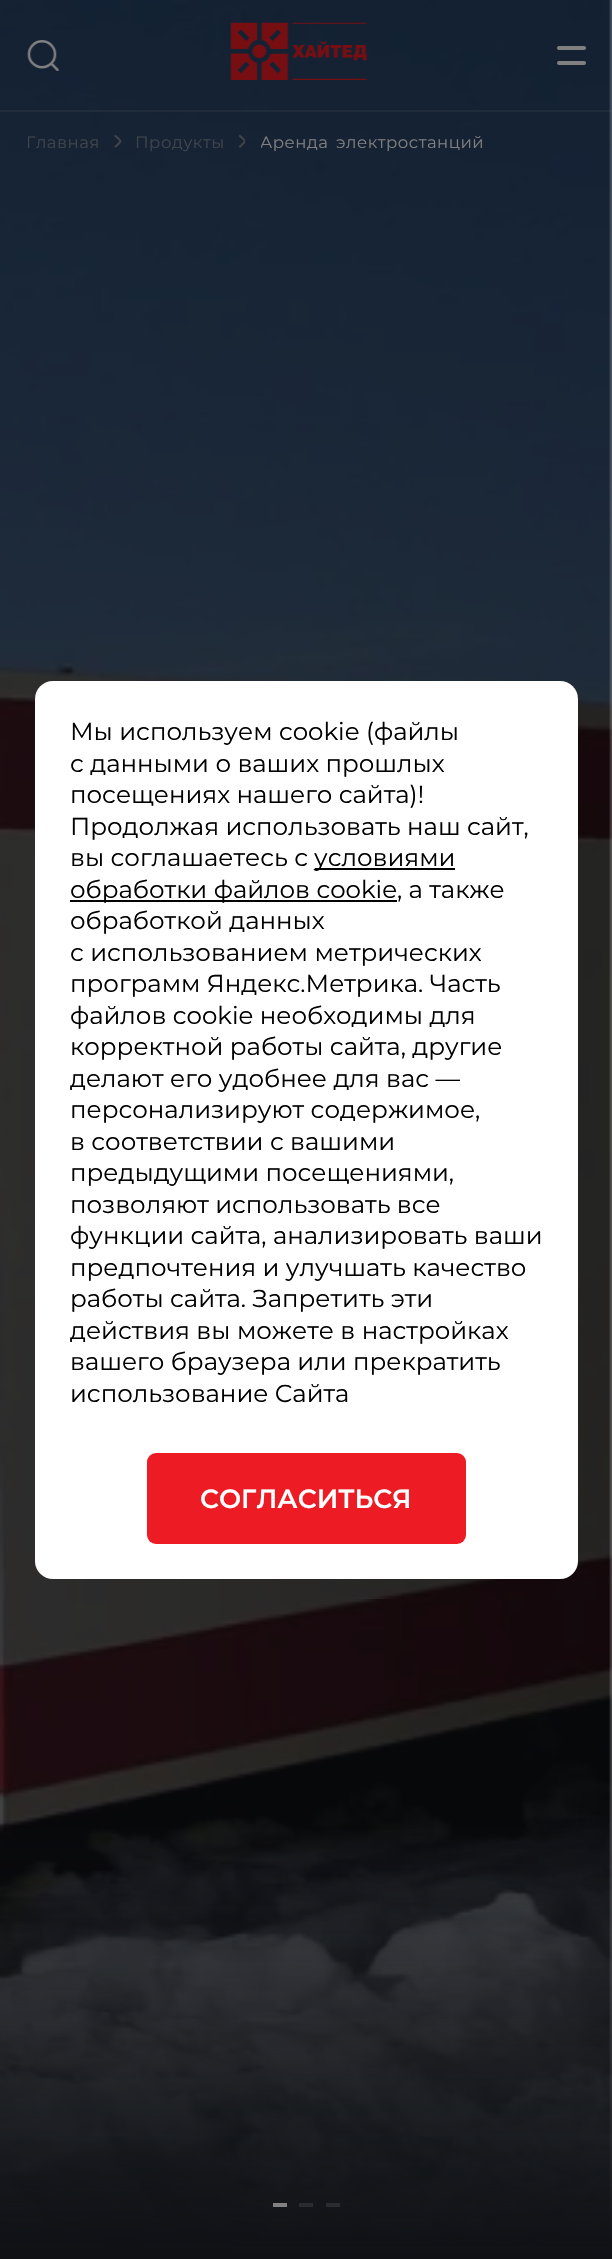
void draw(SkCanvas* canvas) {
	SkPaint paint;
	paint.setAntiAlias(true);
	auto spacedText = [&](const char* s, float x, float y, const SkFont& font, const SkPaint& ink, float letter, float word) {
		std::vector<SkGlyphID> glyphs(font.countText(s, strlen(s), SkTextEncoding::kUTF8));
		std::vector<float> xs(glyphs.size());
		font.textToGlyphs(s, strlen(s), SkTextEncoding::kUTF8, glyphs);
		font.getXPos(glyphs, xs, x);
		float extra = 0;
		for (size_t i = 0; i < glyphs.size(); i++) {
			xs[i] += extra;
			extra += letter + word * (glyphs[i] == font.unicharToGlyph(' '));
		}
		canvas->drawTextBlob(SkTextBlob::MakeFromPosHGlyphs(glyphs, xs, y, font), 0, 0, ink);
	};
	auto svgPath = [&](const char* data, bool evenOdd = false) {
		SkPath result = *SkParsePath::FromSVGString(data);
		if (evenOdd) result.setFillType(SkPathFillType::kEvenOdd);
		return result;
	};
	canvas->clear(0xffffffff);
	canvas->drawImageRect(SkImages::DeferredFromEncodedData(SkData::MakeFromFileName("img3.png")), SkRect::MakeXYWH(0, 0, 612, 2256), SkSamplingOptions());
	paint.setColor(0x1a808080);
	canvas->drawRect(SkRect::MakeXYWH(0, 110, 612, 2), paint);
	canvas->drawImageRect(SkImages::DeferredFromEncodedData(SkData::MakeFromFileName("img1.png")), SkRect::MakeXYWH(27, 40, 33, 31), SkSamplingOptions());
	canvas->drawImageRect(SkImages::DeferredFromEncodedData(SkData::MakeFromFileName("img2.png")), SkRect::MakeXYWH(230, 22, 138, 58), SkSamplingOptions());
	paint.setColor(0xff808080);
	canvas->drawRoundRect(SkRect::MakeXYWH(557, 46, 29, 4), 2, 2, paint);
	canvas->drawRoundRect(SkRect::MakeXYWH(557, 61, 29, 4), 2, 2, paint);
	{
		const SkColor colors[] = {0xff0e1014, 0x000e1014};
		const float stops[] = {0, 0.2};
		const SkPoint ends[] = {{306, 2259}, {306, 0}};
		paint.setShader(SkGradientShader::MakeLinear(ends, colors, stops, 2, SkTileMode::kClamp));
		paint.setAlpha(255);
	}
	canvas->drawRect(SkRect::MakeXYWH(0, 1829, 612, 430), paint);
	paint.setShader(nullptr);
	paint.setColor(0xff808080);
	canvas->drawRect(SkRect::MakeXYWH(273, 2203, 14, 4), paint);
	paint.setColor(0xff292b2e);
	canvas->drawRect(SkRect::MakeXYWH(299, 2203, 14, 4), paint);
	canvas->drawRect(SkRect::MakeXYWH(326, 2203, 14, 4), paint);
	SkFont f1(fontMgr->matchFamilyStyle("Montserrat", SkFontStyle::Normal()), 16.5);
	f1.setSubpixel(true);
	paint.setColor(0xff40444a);
	spacedText("Главная", 26, 148, f1, paint, 0.5, 0);
	paint.setStroke(true);
	paint.setStrokeWidth(2.1);
	paint.setStrokeCap(SkPaint::kRound_Cap);
	paint.setStrokeJoin(SkPaint::kRound_Join);
	canvas->drawPath(svgPath("M115.5 146.5C122 140.5 122 142 115.5 136"), paint);
	paint.setStroke(false);
	spacedText("Продукты", 135, 148, f1, paint, 0.5, 0);
	canvas->save();
	canvas->clipRect(SkRect::MakeXYWH(238, 133, 7, 18));
	paint.setStroke(true);
	canvas->drawPath(svgPath("M240 146.5C246.5 140.5 246.5 142 240 136"), paint);
	canvas->restore();
	canvas->save();
	canvas->clipRect(SkRect::MakeXYWH(261, 131, 222, 20));
	paint.setStroke(false);
	paint.setColor(0xff808080);
	spacedText("Аренда электростанций", 260, 148, f1, paint, 0.5, 3);
	canvas->restore();
	paint.setColor(0xffffffff);
	canvas->drawRoundRect(SkRect::MakeXYWH(35, 681, 543, 898), 18, 18, paint);
	SkFont f2(fontMgr->matchFamilyStyle("Montserrat", SkFontStyle::Normal()), 24.5);
	f2.setSubpixel(true);
	paint.setColor(0xff000000);
	canvas->drawString("Мы используем cookie (файлы", 70, 740, f2, paint);
	canvas->drawString("с данными о ваших прошлых", 70, 772, f2, paint);
	canvas->drawString("посещениях нашего сайта)!", 70, 803, f2, paint);
	canvas->drawString("Продолжая использовать наш сайт,", 70, 835, f2, paint);
	canvas->drawString("вы соглашаетесь с", 70, 866, f2, paint);
	canvas->drawRect(SkRect::MakeXYWH(315, 868, 140, 2), paint);
	canvas->drawString("условиями", 314, 866, f2, paint);
	canvas->drawRect(SkRect::MakeXYWH(70, 900, 327, 2), paint);
	canvas->drawString("обработки файлов cookie, а также", 70, 898, f2, paint);
	canvas->drawString("обработкой данных", 70, 929, f2, paint);
	canvas->drawString("с использованием метрических", 70, 961, f2, paint);
	canvas->drawString("программ Яндекс.Метрика. Часть", 70, 992, f2, paint);
	canvas->drawString("файлов cookie необходимы для", 70, 1024, f2, paint);
	canvas->drawString("корректной работы сайта, другие", 70, 1055, f2, paint);
	canvas->drawString("делают его удобнее для вас —", 70, 1087, f2, paint);
	canvas->drawString("персонализируют содержимое,", 70, 1118, f2, paint);
	canvas->drawString("в соответствии с вашими", 70, 1150, f2, paint);
	canvas->drawString("предыдущими посещениями,", 70, 1181, f2, paint);
	canvas->drawString("позволяют использовать все", 70, 1213, f2, paint);
	canvas->drawString("функции сайта, анализировать ваши", 70, 1244, f2, paint);
	canvas->drawString("предпочтения и улучшать качество", 70, 1276, f2, paint);
	canvas->drawString("работы сайта. Запретить эти", 70, 1307, f2, paint);
	canvas->drawString("действия вы можете в настройках", 70, 1339, f2, paint);
	canvas->drawString("вашего браузера или прекратить", 70, 1370, f2, paint);
	canvas->drawString("использование Сайта", 70, 1402, f2, paint);
	paint.setColor(0xffed1c24);
	canvas->drawRoundRect(SkRect::MakeXYWH(147, 1453, 319, 91), 9, 9, paint);
	SkFont f3(fontMgr->matchFamilyStyle("Montserrat", SkFontStyle(600, SkFontStyle::kNormal_Width, SkFontStyle::kUpright_Slant)), 26.25);
	f3.setSubpixel(true);
	paint.setColor(0xffffffff);
	canvas->drawString("СОГЛАСИТЬСЯ", 200, 1508, f3, paint);
}
